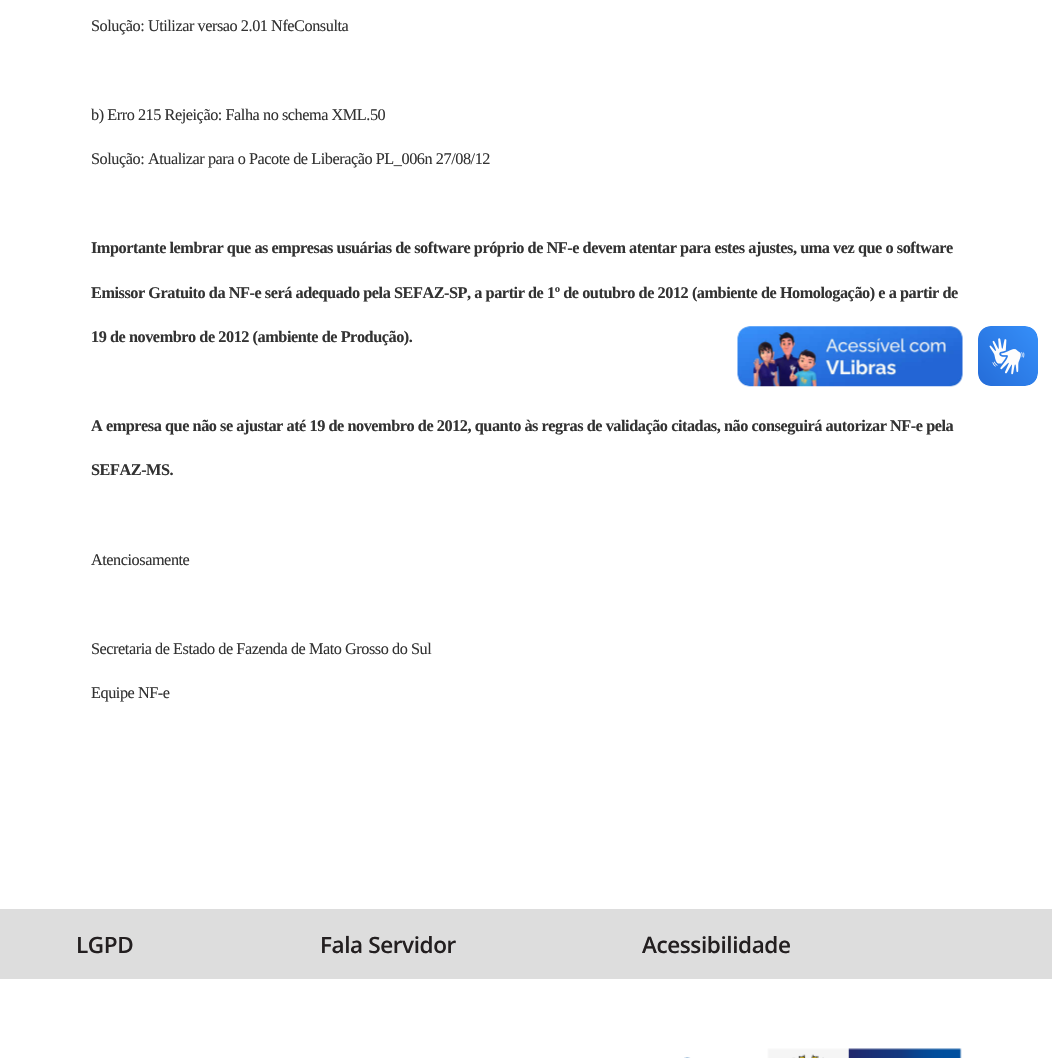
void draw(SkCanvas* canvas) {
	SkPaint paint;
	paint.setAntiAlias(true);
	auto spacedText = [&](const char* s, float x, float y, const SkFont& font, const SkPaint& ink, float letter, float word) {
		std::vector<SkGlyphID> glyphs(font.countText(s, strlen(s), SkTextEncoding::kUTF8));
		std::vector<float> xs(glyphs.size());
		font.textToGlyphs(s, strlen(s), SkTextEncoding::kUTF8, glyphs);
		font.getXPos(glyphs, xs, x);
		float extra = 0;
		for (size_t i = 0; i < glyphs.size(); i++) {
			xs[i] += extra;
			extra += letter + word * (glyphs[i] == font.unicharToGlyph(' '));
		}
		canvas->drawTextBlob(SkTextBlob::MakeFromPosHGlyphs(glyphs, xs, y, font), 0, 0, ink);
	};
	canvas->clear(0xffffffff);
	SkFont f1(fontMgr->matchFamilyStyle("Liberation Serif", SkFontStyle::Normal()), 16.25);
	f1.setSubpixel(true);
	paint.setColor(0xff333333);
	spacedText("Solução: Utilizar versao 2.01 NfeConsulta", 91, 31, f1, paint, -0.45, 0);
	spacedText("b) Erro 215 Rejeição: Falha no schema XML.50", 91, 120, f1, paint, -0.45, 0);
	spacedText("Solução: Atualizar para o Pacote de Liberação PL_006n 27/08/12", 91, 164, f1, paint, -0.45, 0);
	SkFont f2(fontMgr->matchFamilyStyle("Liberation Serif", SkFontStyle::Bold()), 16.25);
	f2.setSubpixel(true);
	spacedText("Importante lembrar que as empresas usuárias de software próprio de NF-e devem atentar para estes ajustes, uma vez que o software", 91, 253, f2, paint, -0.45, 0);
	spacedText("Emissor Gratuito da NF-e será adequado pela SEFAZ-SP, a partir de 1º de outubro de 2012 (ambiente de Homologação) e a partir de", 91, 298, f2, paint, -0.45, 0);
	spacedText("19 de novembro de 2012 (ambiente de Produção).", 91, 342, f2, paint, -0.45, 0);
	spacedText("A empresa que não se ajustar até 19 de novembro de 2012, quanto às regras de validação citadas, não conseguirá autorizar NF-e pela", 91, 431, f2, paint, -0.45, 0);
	spacedText("SEFAZ-MS.", 91, 475, f2, paint, -0.45, 0);
	spacedText("Atenciosamente", 91, 565, f1, paint, -0.45, 0);
	spacedText("Secretaria de Estado de Fazenda de Mato Grosso do Sul", 91, 654, f1, paint, -0.45, 0);
	spacedText("Equipe NF-e", 91, 698, f1, paint, -0.45, 0);
	canvas->drawImageRect(SkImages::DeferredFromEncodedData(SkData::MakeFromFileName("img1.png")), SkRect::MakeXYWH(737, 326, 226, 61), SkSamplingOptions());
	canvas->drawImageRect(SkImages::DeferredFromEncodedData(SkData::MakeFromFileName("img2.png")), SkRect::MakeXYWH(978, 326, 60, 60), SkSamplingOptions());
	paint.setColor(0xffdddddd);
	canvas->drawRect(SkRect::MakeXYWH(0, 909, 1052, 70), paint);
	SkFont f3(fontMgr->matchFamilyStyle("Open Sans", SkFontStyle(600, SkFontStyle::kNormal_Width, SkFontStyle::kUpright_Slant)), 22.5);
	f3.setSubpixel(true);
	paint.setColor(0xff231f20);
	spacedText("LGPD", 76, 953, f3, paint, -0.4, 0);
	spacedText("Fala Servidor", 320, 953, f3, paint, -0.4, 0);
	spacedText("Acessibilidade", 642, 953, f3, paint, -0.4, 0);
	canvas->drawImageRect(SkImages::DeferredFromEncodedData(SkData::MakeFromFileName("img3.png")), SkRect::MakeXYWH(684, 1048, 278, 10), SkSamplingOptions());
}
